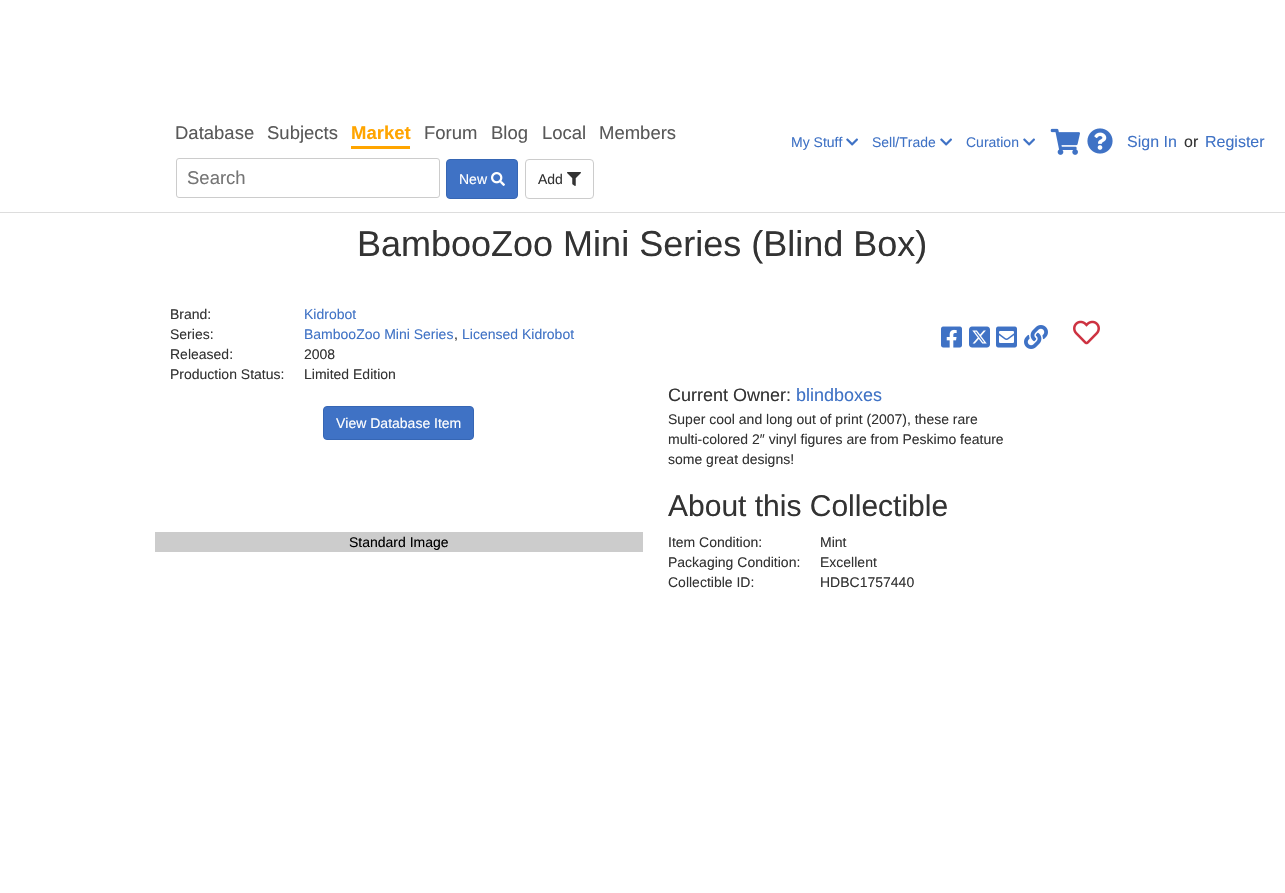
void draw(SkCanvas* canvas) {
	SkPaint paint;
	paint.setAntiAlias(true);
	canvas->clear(0xffffffff);
	SkFont f1(fontMgr->matchFamilyStyle("Liberation Sans", SkFontStyle::Normal()), 18.5);
	f1.setSubpixel(true);
	paint.setColor(0xff595959);
	canvas->drawString("Database", 175, 139, f1, paint);
	canvas->drawString("Subjects", 267, 139, f1, paint);
	paint.setColor(0xffffa500);
	canvas->drawRect(SkRect::MakeXYWH(351, 146, 59, 3), paint);
	SkFont f2(fontMgr->matchFamilyStyle("Liberation Sans", SkFontStyle::Bold()), 18.5);
	f2.setSubpixel(true);
	canvas->drawString("Market", 351, 139, f2, paint);
	paint.setColor(0xff595959);
	canvas->drawString("Forum", 424, 139, f1, paint);
	canvas->drawString("Blog", 491, 139, f1, paint);
	canvas->drawString("Local", 542, 139, f1, paint);
	canvas->drawString("Members", 599, 139, f1, paint);
	paint.setStroke(true);
	paint.setStrokeWidth(1);
	paint.setColor(0xffcccccc);
	canvas->drawRoundRect(SkRect::MakeXYWH(176.5, 158.5, 263, 39), 2.5, 2.5, paint);
	paint.setStroke(false);
	paint.setColor(0xff757575);
	canvas->drawString("Search", 187, 184, f1, paint);
	paint.setColor(0xff3f72c5);
	canvas->drawRoundRect(SkRect::MakeXYWH(446.5, 159.5, 71, 39), 3.5, 3.5, paint);
	paint.setStroke(true);
	paint.setColor(0xff3666b4);
	canvas->drawRoundRect(SkRect::MakeXYWH(446.5, 159.5, 71, 39), 3.5, 3.5, paint);
	SkFont f3(fontMgr->matchFamilyStyle("Liberation Sans", SkFontStyle::Normal()), 14);
	f3.setSubpixel(true);
	paint.setStroke(false);
	paint.setColor(0xffffffff);
	canvas->drawString("New", 459, 184, f3, paint);
	canvas->drawImageRect(SkImages::DeferredFromEncodedData(SkData::MakeFromFileName("img1.png")), SkRect::MakeXYWH(491, 172, 14, 14), SkSamplingOptions());
	paint.setStroke(true);
	paint.setColor(0xffcccccc);
	canvas->drawRoundRect(SkRect::MakeXYWH(525.5, 159.5, 68, 39), 3.5, 3.5, paint);
	paint.setStroke(false);
	paint.setColor(0xff333333);
	canvas->drawString("Add", 538, 184, f3, paint);
	canvas->drawImageRect(SkImages::DeferredFromEncodedData(SkData::MakeFromFileName("img2.png")), SkRect::MakeXYWH(567, 172, 14, 14), SkSamplingOptions());
	paint.setColor(0xff3f72c5);
	canvas->drawString("My Stuff", 791, 147, f3, paint);
	canvas->drawImageRect(SkImages::DeferredFromEncodedData(SkData::MakeFromFileName("img3.png")), SkRect::MakeXYWH(846, 138, 12, 8), SkSamplingOptions());
	canvas->drawString("Sell/Trade", 872, 147, f3, paint);
	canvas->drawImageRect(SkImages::DeferredFromEncodedData(SkData::MakeFromFileName("img3.png")), SkRect::MakeXYWH(940, 138, 12, 8), SkSamplingOptions());
	canvas->drawString("Curation", 966, 147, f3, paint);
	canvas->drawImageRect(SkImages::DeferredFromEncodedData(SkData::MakeFromFileName("img3.png")), SkRect::MakeXYWH(1023, 138, 12, 8), SkSamplingOptions());
	canvas->drawImageRect(SkImages::DeferredFromEncodedData(SkData::MakeFromFileName("img4.png")), SkRect::MakeXYWH(1050, 128, 30, 27), SkSamplingOptions());
	canvas->drawImageRect(SkImages::DeferredFromEncodedData(SkData::MakeFromFileName("img5.png")), SkRect::MakeXYWH(1087, 128, 26, 26), SkSamplingOptions());
	SkFont f4(fontMgr->matchFamilyStyle("Liberation Sans", SkFontStyle::Normal()), 16);
	f4.setSubpixel(true);
	canvas->drawString("Sign In", 1127, 147, f4, paint);
	paint.setColor(0xff333333);
	canvas->drawString("or", 1184, 147, f4, paint);
	paint.setColor(0xff3f72c5);
	canvas->drawString("Register", 1205, 147, f4, paint);
	paint.setColor(0xffdddddd);
	canvas->drawRect(SkRect::MakeXYWH(0, 212, 1285, 1), paint);
	SkFont f5(fontMgr->matchFamilyStyle("Liberation Sans", SkFontStyle::Normal()), 36);
	f5.setSubpixel(true);
	paint.setColor(0xff333333);
	canvas->drawString("BambooZoo Mini Series (Blind Box)", 357, 256, f5, paint);
	canvas->drawString("Brand:", 170, 319, f3, paint);
	paint.setColor(0xff3f72c5);
	canvas->drawString("Kidrobot", 304, 319, f3, paint);
	paint.setColor(0xff333333);
	canvas->drawString("Series:", 170, 339, f3, paint);
	paint.setColor(0xff3f72c5);
	canvas->drawString("BambooZoo Mini Series", 304, 339, f3, paint);
	paint.setColor(0xff333333);
	canvas->drawString(",", 454, 339, f3, paint);
	paint.setColor(0xff3f72c5);
	canvas->drawString("Licensed Kidrobot", 462, 339, f3, paint);
	paint.setColor(0xff333333);
	canvas->drawString("Released:", 170, 359, f3, paint);
	canvas->drawString("2008", 304, 359, f3, paint);
	canvas->drawString("Production Status:", 170, 379, f3, paint);
	canvas->drawString("Limited Edition", 304, 379, f3, paint);
	paint.setColor(0xff3f72c5);
	canvas->drawRoundRect(SkRect::MakeXYWH(323.5, 406.5, 150, 33), 3.5, 3.5, paint);
	paint.setStroke(true);
	paint.setColor(0xff3666b4);
	canvas->drawRoundRect(SkRect::MakeXYWH(323.5, 406.5, 150, 33), 3.5, 3.5, paint);
	paint.setStroke(false);
	paint.setColor(0xffffffff);
	canvas->drawString("View Database Item", 336, 428, f3, paint);
	paint.setColor(0xffcccccc);
	canvas->drawRect(SkRect::MakeXYWH(155, 532, 488, 20), paint);
	paint.setColor(0xff000000);
	canvas->drawString("Standard Image", 349, 547, f3, paint);
	canvas->drawImageRect(SkImages::DeferredFromEncodedData(SkData::MakeFromFileName("img6.png")), SkRect::MakeXYWH(941, 326, 21, 22), SkSamplingOptions());
	canvas->drawImageRect(SkImages::DeferredFromEncodedData(SkData::MakeFromFileName("img7.png")), SkRect::MakeXYWH(969, 326, 21, 22), SkSamplingOptions());
	canvas->drawImageRect(SkImages::DeferredFromEncodedData(SkData::MakeFromFileName("img8.png")), SkRect::MakeXYWH(996, 326, 21, 22), SkSamplingOptions());
	canvas->drawImageRect(SkImages::DeferredFromEncodedData(SkData::MakeFromFileName("img9.png")), SkRect::MakeXYWH(1024, 325, 24, 24), SkSamplingOptions());
	canvas->drawImageRect(SkImages::DeferredFromEncodedData(SkData::MakeFromFileName("img10.png")), SkRect::MakeXYWH(1073, 320, 27, 25), SkSamplingOptions());
	SkFont f6(fontMgr->matchFamilyStyle("Liberation Sans", SkFontStyle::Normal()), 18);
	f6.setSubpixel(true);
	paint.setColor(0xff333333);
	canvas->drawString("Current Owner:", 668, 401, f6, paint);
	paint.setColor(0xff3f72c5);
	canvas->drawString("blindboxes", 796, 401, f6, paint);
	paint.setColor(0xff333333);
	canvas->drawString("Super cool and long out of print (2007), these rare", 668, 424, f3, paint);
	canvas->drawString("multi-colored 2″ vinyl figures are from Peskimo feature", 668, 444, f3, paint);
	canvas->drawString("some great designs!", 668, 464, f3, paint);
	SkFont f7(fontMgr->matchFamilyStyle("Liberation Sans", SkFontStyle::Normal()), 30);
	f7.setSubpixel(true);
	canvas->drawString("About this Collectible", 668, 516, f7, paint);
	canvas->drawString("Item Condition:", 668, 547, f3, paint);
	canvas->drawString("Mint", 820, 547, f3, paint);
	canvas->drawString("Packaging Condition:", 668, 567, f3, paint);
	canvas->drawString("Excellent", 820, 567, f3, paint);
	canvas->drawString("Collectible ID:", 668, 587, f3, paint);
	canvas->drawString("HDBC1757440", 820, 587, f3, paint);
}
